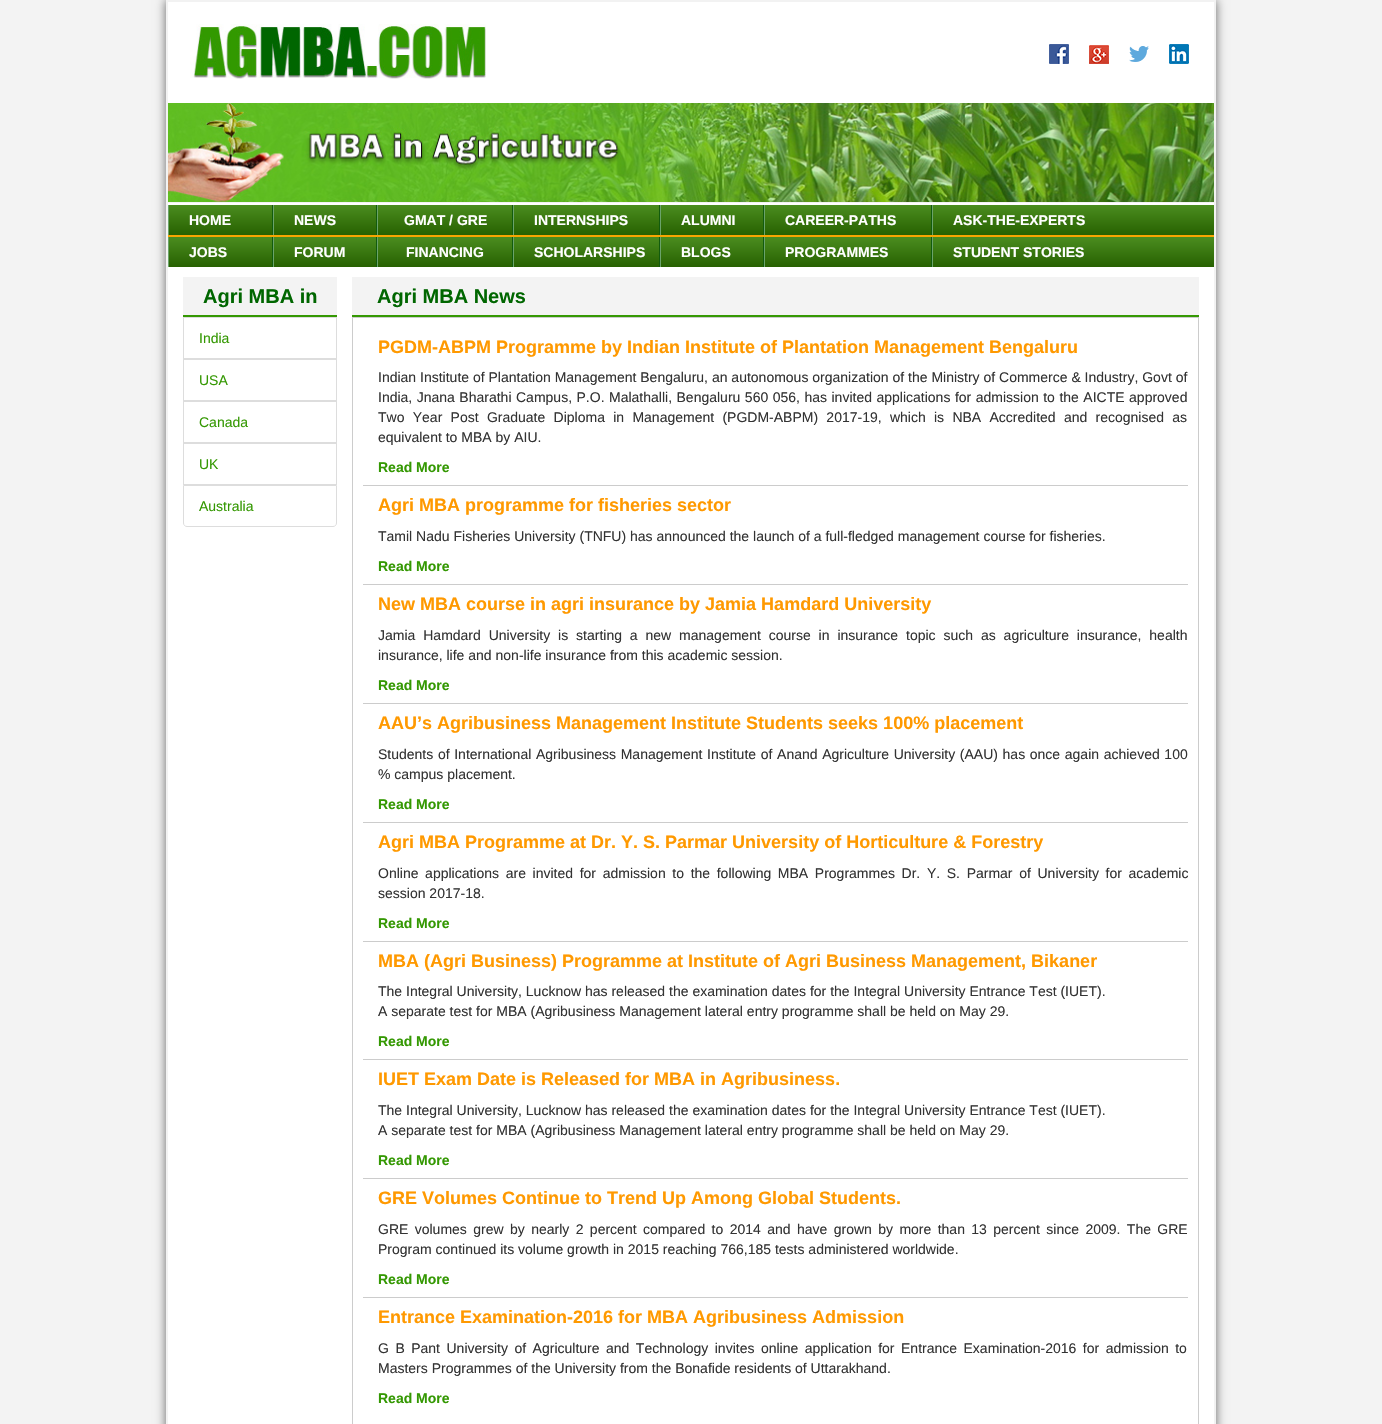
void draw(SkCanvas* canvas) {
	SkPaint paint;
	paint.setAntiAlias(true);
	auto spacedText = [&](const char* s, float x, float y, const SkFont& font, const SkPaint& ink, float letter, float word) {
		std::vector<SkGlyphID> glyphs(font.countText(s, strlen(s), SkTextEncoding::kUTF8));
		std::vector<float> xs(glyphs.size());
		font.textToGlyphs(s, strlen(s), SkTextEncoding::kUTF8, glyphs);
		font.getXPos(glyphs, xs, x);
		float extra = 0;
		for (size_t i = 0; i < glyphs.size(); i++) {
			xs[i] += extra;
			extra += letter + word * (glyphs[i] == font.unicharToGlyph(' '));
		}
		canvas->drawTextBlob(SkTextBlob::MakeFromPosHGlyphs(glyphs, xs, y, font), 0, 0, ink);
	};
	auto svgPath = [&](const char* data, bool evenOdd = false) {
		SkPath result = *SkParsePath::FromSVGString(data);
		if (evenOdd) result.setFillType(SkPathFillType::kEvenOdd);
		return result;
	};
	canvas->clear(0xfff3f3f3);
	paint.setColor(0xff666666);
	paint.setMaskFilter(SkMaskFilter::MakeBlur(kNormal_SkBlurStyle, 5));
	canvas->drawRect(SkRect::MakeXYWH(166, 0, 1050, 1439), paint);
	paint.setMaskFilter(nullptr);
	paint.setColor(0xffffffff);
	canvas->drawRect(SkRect::MakeXYWH(167, 1, 1048, 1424), paint);
	paint.setStroke(true);
	paint.setStrokeWidth(2);
	paint.setColor(0xfff2f2f2);
	canvas->drawRect(SkRect::MakeXYWH(167, 1, 1048, 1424), paint);
	canvas->drawImageRect(SkImages::DeferredFromEncodedData(SkData::MakeFromFileName("img1.png")), SkRect::MakeXYWH(190, 24, 296, 55), SkSamplingOptions());
	canvas->drawImageRect(SkImages::DeferredFromEncodedData(SkData::MakeFromFileName("img2.png")), SkRect::MakeXYWH(1049, 44, 20, 20), SkSamplingOptions());
	canvas->drawImageRect(SkImages::DeferredFromEncodedData(SkData::MakeFromFileName("img3.png")), SkRect::MakeXYWH(1089, 45, 20, 19), SkSamplingOptions());
	canvas->drawImageRect(SkImages::DeferredFromEncodedData(SkData::MakeFromFileName("img4.png")), SkRect::MakeXYWH(1129, 46, 20, 16), SkSamplingOptions());
	canvas->drawImageRect(SkImages::DeferredFromEncodedData(SkData::MakeFromFileName("img5.png")), SkRect::MakeXYWH(1169, 44, 20, 20), SkSamplingOptions());
	paint.setStroke(false);
	paint.setColor(0xfff3f3f3);
	canvas->drawRect(SkRect::MakeXYWH(168, 202, 1046, 1), paint);
	canvas->drawImageRect(SkImages::DeferredFromEncodedData(SkData::MakeFromFileName("img6.png")), SkRect::MakeXYWH(168, 103, 1046, 99), SkSamplingOptions());
	{
		const SkColor colors[] = {0xff4b8d1f, 0xff276101};
		const float stops[] = {0, 1};
		const SkPoint ends[] = {{691, 205}, {691, 235}};
		paint.setShader(SkGradientShader::MakeLinear(ends, colors, stops, 2, SkTileMode::kClamp));
		paint.setAlpha(255);
	}
	canvas->drawRect(SkRect::MakeXYWH(169, 205, 1045, 30), paint);
	paint.setShader(nullptr);
	paint.setColor(0xfff9a502);
	canvas->drawRect(SkRect::MakeXYWH(168, 235, 1046, 2), paint);
	paint.setColor(0xff125b0d);
	canvas->drawRect(SkRect::MakeXYWH(272, 205, 1, 30), paint);
	paint.setColor(0xff6ba36a);
	canvas->drawRect(SkRect::MakeXYWH(168, 205, 1, 30), paint);
	SkFont f1(fontMgr->matchFamilyStyle("Liberation Sans", SkFontStyle::Bold()), 14);
	f1.setSubpixel(true);
	paint.setColor(0xffffffff);
	canvas->drawString("HOME", 189, 225, f1, paint);
	paint.setColor(0xff125b0d);
	canvas->drawRect(SkRect::MakeXYWH(376, 205, 1, 30), paint);
	paint.setColor(0xff6ba36a);
	canvas->drawRect(SkRect::MakeXYWH(273, 205, 1, 30), paint);
	paint.setColor(0xffffffff);
	canvas->drawString("NEWS", 294, 225, f1, paint);
	paint.setColor(0xff125b0d);
	canvas->drawRect(SkRect::MakeXYWH(512, 205, 1, 30), paint);
	paint.setColor(0xff6ba36a);
	canvas->drawRect(SkRect::MakeXYWH(377, 205, 1, 30), paint);
	paint.setColor(0xffffffff);
	canvas->drawString("GMAT / GRE", 404, 225, f1, paint);
	paint.setColor(0xff125b0d);
	canvas->drawRect(SkRect::MakeXYWH(659, 205, 1, 30), paint);
	paint.setColor(0xff6ba36a);
	canvas->drawRect(SkRect::MakeXYWH(513, 205, 1, 30), paint);
	paint.setColor(0xffffffff);
	canvas->drawString("INTERNSHIPS", 534, 225, f1, paint);
	paint.setColor(0xff125b0d);
	canvas->drawRect(SkRect::MakeXYWH(763, 205, 1, 30), paint);
	paint.setColor(0xff6ba36a);
	canvas->drawRect(SkRect::MakeXYWH(660, 205, 1, 30), paint);
	paint.setColor(0xffffffff);
	canvas->drawString("ALUMNI", 681, 225, f1, paint);
	paint.setColor(0xff125b0d);
	canvas->drawRect(SkRect::MakeXYWH(931, 205, 1, 30), paint);
	paint.setColor(0xff6ba36a);
	canvas->drawRect(SkRect::MakeXYWH(764, 205, 1, 30), paint);
	paint.setColor(0xffffffff);
	canvas->drawString("CAREER-PATHS", 785, 225, f1, paint);
	paint.setColor(0xff6ba36a);
	canvas->drawRect(SkRect::MakeXYWH(932, 205, 1, 30), paint);
	paint.setColor(0xffffffff);
	canvas->drawString("ASK-THE-EXPERTS", 953, 225, f1, paint);
	{
		const SkColor colors[] = {0xff4b8d1f, 0xff276101};
		const float stops[] = {0, 1};
		const SkPoint ends[] = {{691, 237}, {691, 267}};
		paint.setShader(SkGradientShader::MakeLinear(ends, colors, stops, 2, SkTileMode::kClamp));
		paint.setAlpha(255);
	}
	canvas->drawRect(SkRect::MakeXYWH(169, 237, 1045, 30), paint);
	paint.setShader(nullptr);
	paint.setColor(0xff125b0d);
	canvas->drawRect(SkRect::MakeXYWH(272, 237, 1, 30), paint);
	paint.setColor(0xff6ba36a);
	canvas->drawRect(SkRect::MakeXYWH(168, 237, 1, 30), paint);
	paint.setColor(0xffffffff);
	canvas->drawString("JOBS", 189, 257, f1, paint);
	paint.setColor(0xff125b0d);
	canvas->drawRect(SkRect::MakeXYWH(376, 237, 1, 30), paint);
	paint.setColor(0xff6ba36a);
	canvas->drawRect(SkRect::MakeXYWH(273, 237, 1, 30), paint);
	paint.setColor(0xffffffff);
	canvas->drawString("FORUM", 294, 257, f1, paint);
	paint.setColor(0xff125b0d);
	canvas->drawRect(SkRect::MakeXYWH(512, 237, 1, 30), paint);
	paint.setColor(0xff6ba36a);
	canvas->drawRect(SkRect::MakeXYWH(377, 237, 1, 30), paint);
	paint.setColor(0xffffffff);
	canvas->drawString("FINANCING", 406, 257, f1, paint);
	paint.setColor(0xff125b0d);
	canvas->drawRect(SkRect::MakeXYWH(659, 237, 1, 30), paint);
	paint.setColor(0xff6ba36a);
	canvas->drawRect(SkRect::MakeXYWH(513, 237, 1, 30), paint);
	paint.setColor(0xffffffff);
	canvas->drawString("SCHOLARSHIPS", 534, 257, f1, paint);
	paint.setColor(0xff125b0d);
	canvas->drawRect(SkRect::MakeXYWH(763, 237, 1, 30), paint);
	paint.setColor(0xff6ba36a);
	canvas->drawRect(SkRect::MakeXYWH(660, 237, 1, 30), paint);
	paint.setColor(0xffffffff);
	canvas->drawString("BLOGS", 681, 257, f1, paint);
	paint.setColor(0xff125b0d);
	canvas->drawRect(SkRect::MakeXYWH(931, 237, 1, 30), paint);
	paint.setColor(0xff6ba36a);
	canvas->drawRect(SkRect::MakeXYWH(764, 237, 1, 30), paint);
	paint.setColor(0xffffffff);
	canvas->drawString("PROGRAMMES", 785, 257, f1, paint);
	paint.setColor(0xff6ba36a);
	canvas->drawRect(SkRect::MakeXYWH(932, 237, 1, 30), paint);
	paint.setColor(0xffffffff);
	canvas->drawString("STUDENT STORIES", 953, 257, f1, paint);
	paint.setColor(0xfff3f3f3);
	canvas->drawRect(SkRect::MakeXYWH(183, 277, 154, 38), paint);
	paint.setColor(0xff349802);
	canvas->drawRect(SkRect::MakeXYWH(183, 315, 154, 2), paint);
	SkFont f2(fontMgr->matchFamilyStyle("Liberation Sans", SkFontStyle::Bold()), 20);
	f2.setSubpixel(true);
	paint.setColor(0xff006600);
	canvas->drawString("Agri MBA in", 203, 303, f2, paint);
	paint.setStroke(true);
	paint.setStrokeWidth(1);
	paint.setColor(0xffdddddd);
	canvas->drawRect(SkRect::MakeXYWH(183.5, 317.5, 153, 41), paint);
	SkFont f3(fontMgr->matchFamilyStyle("Liberation Sans", SkFontStyle::Normal()), 14);
	f3.setSubpixel(true);
	paint.setStroke(false);
	paint.setColor(0xff349802);
	canvas->drawString("India", 199, 343, f3, paint);
	paint.setStroke(true);
	paint.setColor(0xffdddddd);
	canvas->drawRect(SkRect::MakeXYWH(183.5, 359.5, 153, 41), paint);
	paint.setStroke(false);
	paint.setColor(0xff349802);
	canvas->drawString("USA", 199, 385, f3, paint);
	paint.setStroke(true);
	paint.setColor(0xffdddddd);
	canvas->drawRect(SkRect::MakeXYWH(183.5, 401.5, 153, 41), paint);
	paint.setStroke(false);
	paint.setColor(0xff349802);
	canvas->drawString("Canada", 199, 427, f3, paint);
	paint.setStroke(true);
	paint.setColor(0xffdddddd);
	canvas->drawRect(SkRect::MakeXYWH(183.5, 443.5, 153, 41), paint);
	paint.setStroke(false);
	paint.setColor(0xff349802);
	canvas->drawString("UK", 199, 469, f3, paint);
	paint.setStroke(true);
	paint.setColor(0xffdddddd);
	canvas->drawPath(svgPath("M183.5 485.5H336.5V523C336.5 525 335 526.5 333 526.5H187C185 526.5 183.5 525 183.5 523Z"), paint);
	paint.setStroke(false);
	paint.setColor(0xff349802);
	canvas->drawString("Australia", 199, 511, f3, paint);
	paint.setColor(0xfff3f3f3);
	canvas->drawRect(SkRect::MakeXYWH(352, 277, 847, 38), paint);
	paint.setColor(0xff349802);
	canvas->drawRect(SkRect::MakeXYWH(352, 315, 847, 2), paint);
	paint.setColor(0xff006600);
	canvas->drawString("Agri MBA News", 377, 303, f2, paint);
	paint.setStroke(true);
	paint.setColor(0xffcccccc);
	canvas->drawRect(SkRect::MakeXYWH(352.5, 317.5, 846, 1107), paint);
	SkFont f4(fontMgr->matchFamilyStyle("Liberation Sans", SkFontStyle::Bold()), 18);
	f4.setSubpixel(true);
	paint.setStroke(false);
	paint.setColor(0xffff9900);
	canvas->drawString("PGDM-ABPM Programme by Indian Institute of Plantation Management Bengaluru", 378, 353, f4, paint);
	paint.setColor(0xffcccccc);
	canvas->drawRect(SkRect::MakeXYWH(363, 485, 825, 1), paint);
	paint.setColor(0xff333333);
	canvas->drawString("Indian Institute of Plantation Management Bengaluru, an autonomous organization of the Ministry of Commerce & Industry, Govt of", 378, 382, f3, paint);
	spacedText("India, Jnana Bharathi Campus, P.O. Malathalli, Bengaluru 560 056, has invited applications for admission to the AICTE approved", 378, 402, f3, paint, 0, 0.6);
	spacedText("Two Year Post Graduate Diploma in Management (PGDM-ABPM) 2017-19, which is NBA Accredited and recognised as", 378, 422, f3, paint, 0, 4.4);
	canvas->drawString("equivalent to MBA by AIU.", 378, 442, f3, paint);
	paint.setColor(0xff349802);
	canvas->drawString("Read More", 378, 472, f1, paint);
	paint.setColor(0xffff9900);
	canvas->drawString("Agri MBA programme for fisheries sector", 378, 511, f4, paint);
	paint.setColor(0xffcccccc);
	canvas->drawRect(SkRect::MakeXYWH(363, 584, 825, 1), paint);
	paint.setColor(0xff333333);
	canvas->drawString("Tamil Nadu Fisheries University (TNFU) has announced the launch of a full-fledged management course for fisheries.", 378, 541, f3, paint);
	paint.setColor(0xff349802);
	canvas->drawString("Read More", 378, 571, f1, paint);
	paint.setColor(0xffff9900);
	canvas->drawString("New MBA course in agri insurance by Jamia Hamdard University", 378, 610, f4, paint);
	paint.setColor(0xffcccccc);
	canvas->drawRect(SkRect::MakeXYWH(363, 703, 825, 1), paint);
	paint.setColor(0xff333333);
	spacedText("Jamia Hamdard University is starting a new management course in insurance topic such as agriculture insurance, health", 378, 640, f3, paint, 0, 4);
	canvas->drawString("insurance, life and non-life insurance from this academic session.", 378, 660, f3, paint);
	paint.setColor(0xff349802);
	canvas->drawString("Read More", 378, 690, f1, paint);
	paint.setColor(0xffff9900);
	canvas->drawString("AAU’s Agribusiness Management Institute Students seeks 100% placement", 378, 729, f4, paint);
	paint.setColor(0xffcccccc);
	canvas->drawRect(SkRect::MakeXYWH(363, 822, 825, 1), paint);
	paint.setColor(0xff333333);
	spacedText("Students of International Agribusiness Management Institute of Anand Agriculture University (AAU) has once again achieved 100", 378, 759, f3, paint, 0, 0.75);
	canvas->drawString("% campus placement.", 378, 779, f3, paint);
	paint.setColor(0xff349802);
	canvas->drawString("Read More", 378, 809, f1, paint);
	paint.setColor(0xffff9900);
	canvas->drawString("Agri MBA Programme at Dr. Y. S. Parmar University of Horticulture & Forestry", 378, 848, f4, paint);
	paint.setColor(0xffcccccc);
	canvas->drawRect(SkRect::MakeXYWH(363, 941, 825, 1), paint);
	paint.setColor(0xff333333);
	spacedText("Online applications are invited for admission to the following MBA Programmes Dr. Y. S. Parmar of University for academic", 378, 878, f3, paint, 0, 2.75);
	canvas->drawString("session 2017-18.", 378, 898, f3, paint);
	paint.setColor(0xff349802);
	canvas->drawString("Read More", 378, 928, f1, paint);
	paint.setColor(0xffff9900);
	canvas->drawString("MBA (Agri Business) Programme at Institute of Agri Business Management, Bikaner", 378, 967, f4, paint);
	paint.setColor(0xffcccccc);
	canvas->drawRect(SkRect::MakeXYWH(363, 1059, 825, 1), paint);
	paint.setColor(0xff333333);
	canvas->drawString("The Integral University, Lucknow has released the examination dates for the Integral University Entrance Test (IUET).", 378, 996, f3, paint);
	canvas->drawString("A separate test for MBA (Agribusiness Management lateral entry programme shall be held on May 29.", 378, 1016, f3, paint);
	paint.setColor(0xff349802);
	canvas->drawString("Read More", 378, 1046, f1, paint);
	paint.setColor(0xffff9900);
	canvas->drawString("IUET Exam Date is Released for MBA in Agribusiness.", 378, 1085, f4, paint);
	paint.setColor(0xffcccccc);
	canvas->drawRect(SkRect::MakeXYWH(363, 1178, 825, 1), paint);
	paint.setColor(0xff333333);
	canvas->drawString("The Integral University, Lucknow has released the examination dates for the Integral University Entrance Test (IUET).", 378, 1115, f3, paint);
	canvas->drawString("A separate test for MBA (Agribusiness Management lateral entry programme shall be held on May 29.", 378, 1135, f3, paint);
	paint.setColor(0xff349802);
	canvas->drawString("Read More", 378, 1165, f1, paint);
	paint.setColor(0xffff9900);
	canvas->drawString("GRE Volumes Continue to Trend Up Among Global Students.", 378, 1204, f4, paint);
	paint.setColor(0xffcccccc);
	canvas->drawRect(SkRect::MakeXYWH(363, 1297, 825, 1), paint);
	paint.setColor(0xff333333);
	spacedText("GRE volumes grew by nearly 2 percent compared to 2014 and have grown by more than 13 percent since 2009. The GRE", 378, 1234, f3, paint, 0, 2.5);
	canvas->drawString("Program continued its volume growth in 2015 reaching 766,185 tests administered worldwide.", 378, 1254, f3, paint);
	paint.setColor(0xff349802);
	canvas->drawString("Read More", 378, 1284, f1, paint);
	paint.setColor(0xffff9900);
	canvas->drawString("Entrance Examination-2016 for MBA Agribusiness Admission", 378, 1323, f4, paint);
	paint.setColor(0xff333333);
	spacedText("G B Pant University of Agriculture and Technology invites online application for Entrance Examination-2016 for admission to", 378, 1353, f3, paint, 0, 2.6);
	canvas->drawString("Masters Programmes of the University from the Bonafide residents of Uttarakhand.", 378, 1373, f3, paint);
	paint.setColor(0xff349802);
	canvas->drawString("Read More", 378, 1403, f1, paint);
}
